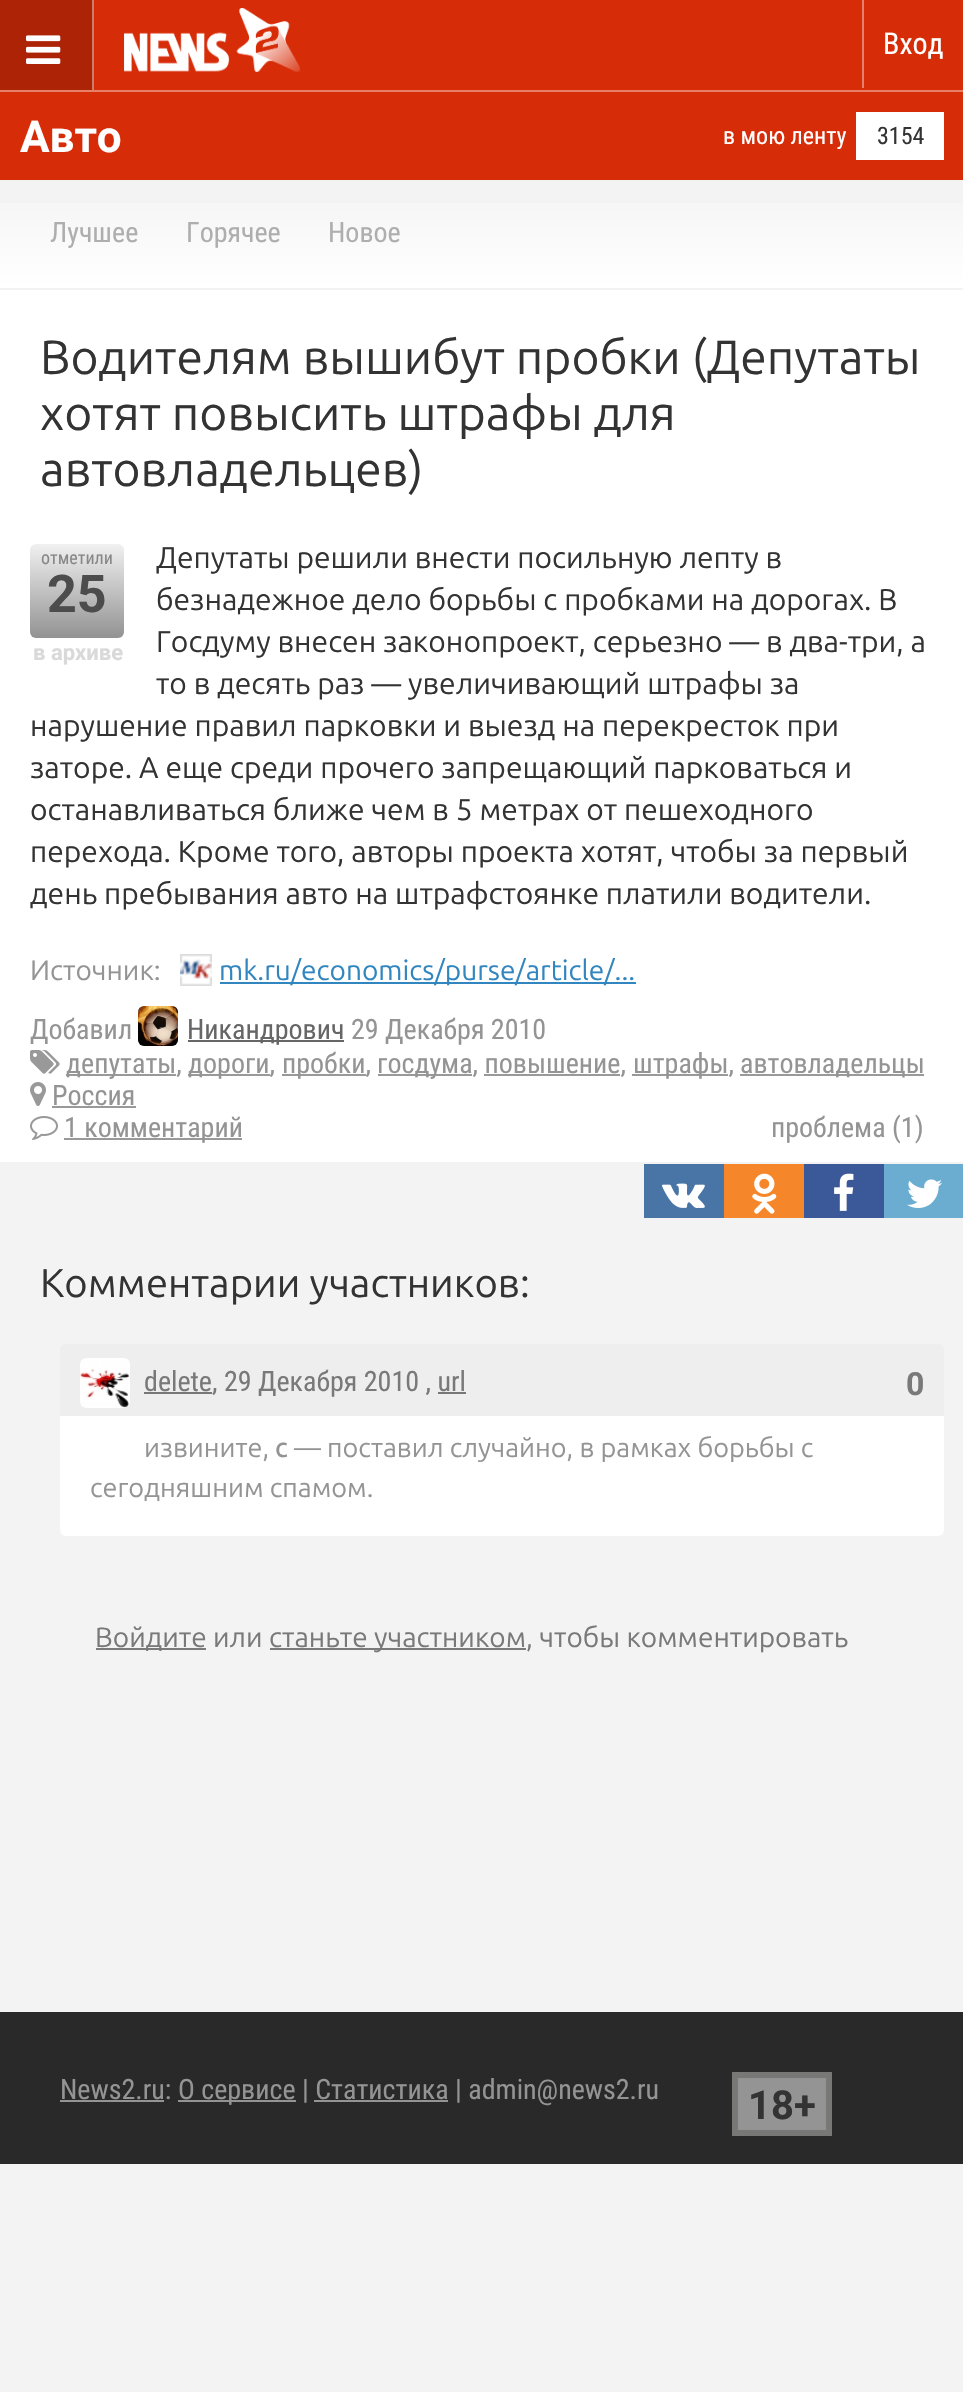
void draw(SkCanvas* canvas) {
	SkPaint paint;
	paint.setAntiAlias(true);
	auto svgPath = [&](const char* data, bool evenOdd = false) {
		SkPath result = *SkParsePath::FromSVGString(data);
		if (evenOdd) result.setFillType(SkPathFillType::kEvenOdd);
		return result;
	};
	canvas->clear(0xfff3f3f3);
	paint.setColor(0xffd72c08);
	canvas->drawRect(SkRect::MakeXYWH(0, 0, 963, 180), paint);
	paint.setColor(0xffac2306);
	canvas->drawRect(SkRect::MakeXYWH(0, 0, 92, 90), paint);
	paint.setColor(0xffcd7b6a);
	canvas->drawRect(SkRect::MakeXYWH(92, 0, 2, 90), paint);
	canvas->drawImageRect(SkImages::DeferredFromEncodedData(SkData::MakeFromFileName("img1.png")), SkRect::MakeXYWH(26, 35, 35, 29), SkSamplingOptions());
	canvas->drawImageRect(SkImages::DeferredFromEncodedData(SkData::MakeFromFileName("img2.png")), SkRect::MakeXYWH(124, 8, 176, 64), SkSamplingOptions());
	paint.setColor(0xffe7806b);
	canvas->drawRect(SkRect::MakeXYWH(862, 0, 2, 88), paint);
	SkFont f1(fontMgr->matchFamilyStyle("Roboto Condensed", SkFontStyle::Normal()), 30);
	f1.setSubpixel(true);
	paint.setColor(0xffffffff);
	canvas->drawString("Вход", 883, 54, f1, paint);
	paint.setColor(0xffe7806b);
	canvas->drawRect(SkRect::MakeXYWH(0, 90, 963, 2), paint);
	SkFont f2(fontMgr->matchFamilyStyle("Roboto", SkFontStyle::Bold()), 44);
	f2.setSubpixel(true);
	paint.setColor(0xffffffff);
	canvas->drawString("Авто", 20, 152, f2, paint);
	SkFont f3(fontMgr->matchFamilyStyle("Roboto Condensed", SkFontStyle::Normal()), 24);
	f3.setSubpixel(true);
	canvas->drawString("в мою ленту", 723, 144, f3, paint);
	canvas->drawRect(SkRect::MakeXYWH(856, 112, 88, 48), paint);
	paint.setColor(0xff333333);
	canvas->drawString("3154", 877, 144, f3, paint);
	{
		const SkColor colors[] = {0xfff3f3f3, 0xffffffff};
		const float stops[] = {0, 1};
		const SkPoint ends[] = {{482, 180}, {482, 288}};
		paint.setShader(SkGradientShader::MakeLinear(ends, colors, stops, 2, SkTileMode::kClamp));
		paint.setAlpha(255);
	}
	canvas->drawRect(SkRect::MakeXYWH(0, 203, 963, 85), paint);
	SkFont f4(fontMgr->matchFamilyStyle("Roboto Condensed", SkFontStyle::Normal()), 28);
	f4.setSubpixel(true);
	paint.setShader(nullptr);
	paint.setColor(0xffaeaeae);
	canvas->drawString("Лучшее", 50, 242, f4, paint);
	canvas->drawString("Горячее", 186, 242, f4, paint);
	canvas->drawString("Новое", 328, 242, f4, paint);
	paint.setColor(0xffffffff);
	canvas->drawRect(SkRect::MakeXYWH(0, 290, 963, 872), paint);
	SkFont f5(fontMgr->matchFamilyStyle("Ubuntu", SkFontStyle::Normal()), 48);
	f5.setSubpixel(true);
	paint.setColor(0xff333333);
	canvas->drawString("Водителям вышибут пробки (Депутаты", 40, 374, f5, paint);
	canvas->drawString("хотят повысить штрафы для", 40, 430, f5, paint);
	canvas->drawString("автовладельцев)", 40, 486, f5, paint);
	SkFont f6(fontMgr->matchFamilyStyle("Ubuntu", SkFontStyle::Normal()), 30);
	f6.setSubpixel(true);
	canvas->drawString("Депутаты решили внести посильную лепту в", 156, 568, f6, paint);
	canvas->drawString("безнадежное дело борьбы с пробками на дорогах. В", 156, 610, f6, paint);
	canvas->drawString("Госдуму внесен законопроект, серьезно — в два-три, а", 156, 652, f6, paint);
	canvas->drawString("то в десять раз — увеличивающий штрафы за", 156, 694, f6, paint);
	canvas->drawString("нарушение правил парковки и выезд на перекресток при", 30, 736, f6, paint);
	canvas->drawString("заторе. А еще среди прочего запрещающий парковаться и", 30, 778, f6, paint);
	canvas->drawString("останавливаться ближе чем в 5 метрах от пешеходного", 30, 820, f6, paint);
	canvas->drawString("перехода. Кроме того, авторы проекта хотят, чтобы за первый", 30, 862, f6, paint);
	canvas->drawString("день пребывания авто на штрафстоянке платили водители.", 30, 904, f6, paint);
	SkFont f7(fontMgr->matchFamilyStyle("Ubuntu", SkFontStyle::Normal()), 28);
	f7.setSubpixel(true);
	paint.setColor(0xff949494);
	canvas->drawString("Источник:", 30, 980, f7, paint);
	canvas->drawImageRect(SkImages::DeferredFromEncodedData(SkData::MakeFromFileName("img3.png")), SkRect::MakeXYWH(180, 954, 32, 32), SkSamplingOptions());
	paint.setColor(0xff3286bf);
	canvas->drawRect(SkRect::MakeXYWH(220, 982, 416, 2), paint);
	canvas->drawString("mk.ru/economics/purse/article/...", 219, 980, f7, paint);
	paint.setColor(0xff949494);
	canvas->drawString("Добавил", 30, 1039, f4, paint);
	canvas->drawImageRect(SkImages::DeferredFromEncodedData(SkData::MakeFromFileName("img4.png")), SkRect::MakeXYWH(138, 1006, 40, 40), SkSamplingOptions());
	paint.setColor(0xff666666);
	canvas->drawRect(SkRect::MakeXYWH(188, 1040, 156, 2), paint);
	canvas->drawString("Никандрович", 187, 1039, f4, paint);
	paint.setColor(0xff949494);
	canvas->drawString("29 Декабря 2010", 351, 1039, f4, paint);
	canvas->drawImageRect(SkImages::DeferredFromEncodedData(SkData::MakeFromFileName("img5.png")), SkRect::MakeXYWH(30, 1050, 30, 24), SkSamplingOptions());
	paint.setColor(0xff999999);
	canvas->drawRect(SkRect::MakeXYWH(66, 1074, 110, 2), paint);
	paint.setColor(0xff949494);
	canvas->drawString("депутаты,", 66, 1073, f4, paint);
	paint.setColor(0xff999999);
	canvas->drawRect(SkRect::MakeXYWH(188, 1074, 82, 2), paint);
	paint.setColor(0xff949494);
	canvas->drawString("дороги,", 188, 1073, f4, paint);
	paint.setColor(0xff999999);
	canvas->drawRect(SkRect::MakeXYWH(282, 1074, 84, 2), paint);
	paint.setColor(0xff949494);
	canvas->drawString("пробки,", 282, 1073, f4, paint);
	paint.setColor(0xff999999);
	canvas->drawRect(SkRect::MakeXYWH(378, 1074, 94, 2), paint);
	paint.setColor(0xff949494);
	canvas->drawString("госдума, повышение,", 377, 1073, f4, paint);
	paint.setColor(0xff999999);
	canvas->drawRect(SkRect::MakeXYWH(632, 1074, 96, 2), paint);
	paint.setColor(0xff949494);
	canvas->drawString("штрафы,", 633, 1073, f4, paint);
	paint.setColor(0xff999999);
	canvas->drawRect(SkRect::MakeXYWH(740, 1074, 184, 2), paint);
	paint.setColor(0xff949494);
	canvas->drawString("автовладельцы", 740, 1073, f4, paint);
	paint.setColor(0xff999999);
	canvas->drawRect(SkRect::MakeXYWH(484, 1074, 136, 2), paint);
	canvas->drawImageRect(SkImages::DeferredFromEncodedData(SkData::MakeFromFileName("img6.png")), SkRect::MakeXYWH(30, 1082, 16, 24), SkSamplingOptions());
	paint.setColor(0xff949494);
	canvas->drawString("Россия", 52, 1105, f4, paint);
	paint.setColor(0xff999999);
	canvas->drawRect(SkRect::MakeXYWH(52, 1106, 84, 2), paint);
	canvas->drawImageRect(SkImages::DeferredFromEncodedData(SkData::MakeFromFileName("img7.png")), SkRect::MakeXYWH(30, 1116, 28, 24), SkSamplingOptions());
	canvas->drawRect(SkRect::MakeXYWH(64, 1138, 178, 2), paint);
	paint.setColor(0xff949494);
	canvas->drawString("1 комментарий", 64, 1137, f4, paint);
	canvas->drawString("проблема (1)", 771, 1137, f4, paint);
	{
		const SkColor colors[] = {0xfff0f0f0, 0xff939393};
		const float stops[] = {0, 1};
		const SkPoint ends[] = {{77, 544}, {77, 638}};
		paint.setShader(SkGradientShader::MakeLinear(ends, colors, stops, 2, SkTileMode::kClamp));
		paint.setAlpha(255);
	}
	canvas->drawRoundRect(SkRect::MakeXYWH(30, 544, 94, 94), 6, 6, paint);
	SkFont f8(fontMgr->matchFamilyStyle("Roboto Condensed", SkFontStyle::Normal()), 18);
	f8.setSubpixel(true);
	paint.setShader(nullptr);
	paint.setColor(0xff878787);
	canvas->drawString("отметили", 41, 564, f8, paint);
	SkFont f9(fontMgr->matchFamilyStyle("Roboto", SkFontStyle::Bold()), 52);
	f9.setSubpixel(true);
	paint.setColor(0xff4c4c4c);
	canvas->drawString("25", 47, 612, f9, paint);
	SkFont f10(fontMgr->matchFamilyStyle("Roboto", SkFontStyle::Bold()), 22);
	f10.setSubpixel(true);
	paint.setColor(0xffd9d9d9);
	canvas->drawString("в архиве", 33, 660, f10, paint);
	paint.setColor(0xff4874a6);
	canvas->drawRect(SkRect::MakeXYWH(644, 1164, 80, 54), paint);
	canvas->drawImageRect(SkImages::DeferredFromEncodedData(SkData::MakeFromFileName("img8.png")), SkRect::MakeXYWH(662, 1183, 43, 25), SkSamplingOptions());
	paint.setColor(0xfff58629);
	canvas->drawRect(SkRect::MakeXYWH(724, 1164, 80, 54), paint);
	canvas->drawImageRect(SkImages::DeferredFromEncodedData(SkData::MakeFromFileName("img9.png")), SkRect::MakeXYWH(752, 1173, 25, 41), SkSamplingOptions());
	paint.setColor(0xff3b5998);
	canvas->drawRect(SkRect::MakeXYWH(804, 1164, 80, 54), paint);
	canvas->drawImageRect(SkImages::DeferredFromEncodedData(SkData::MakeFromFileName("img10.png")), SkRect::MakeXYWH(834, 1173, 20, 38), SkSamplingOptions());
	paint.setColor(0xff6aadd1);
	canvas->drawRect(SkRect::MakeXYWH(884, 1164, 79, 54), paint);
	canvas->drawImageRect(SkImages::DeferredFromEncodedData(SkData::MakeFromFileName("img11.png")), SkRect::MakeXYWH(907, 1179, 35, 29), SkSamplingOptions());
	SkFont f11(fontMgr->matchFamilyStyle("Ubuntu", SkFontStyle::Normal()), 40);
	f11.setSubpixel(true);
	paint.setColor(0xff333333);
	canvas->drawString("Комментарии участников:", 40, 1297, f11, paint);
	paint.setColor(0xffffffff);
	canvas->drawRoundRect(SkRect::MakeXYWH(60, 1344, 884, 192), 6, 6, paint);
	paint.setColor(0xffeeeeee);
	canvas->drawPath(svgPath("M66 1344H938C941.5 1344 944 1346.5 944 1350V1416H60V1350C60 1346.5 62.5 1344 66 1344Z"), paint);
	canvas->drawImageRect(SkImages::DeferredFromEncodedData(SkData::MakeFromFileName("img12.png")), SkRect::MakeXYWH(80, 1358, 50, 50), SkSamplingOptions());
	paint.setColor(0xff777777);
	canvas->drawRect(SkRect::MakeXYWH(144, 1392, 68, 2), paint);
	paint.setColor(0xff797979);
	canvas->drawString("delete, 29 Декабря 2010 , url", 144, 1391, f4, paint);
	SkFont f12(fontMgr->matchFamilyStyle("Roboto", SkFontStyle::Bold()), 32);
	f12.setSubpixel(true);
	canvas->drawString("0", 906, 1395, f12, paint);
	paint.setColor(0xff777777);
	canvas->drawRect(SkRect::MakeXYWH(438, 1392, 28, 2), paint);
	SkFont f13(fontMgr->matchFamilyStyle("Ubuntu", SkFontStyle::Normal()), 27);
	f13.setSubpixel(true);
	paint.setColor(0xff949494);
	canvas->drawString("извините,", 144, 1457, f13, paint);
	SkFont f14(fontMgr->matchFamilyStyle("Ubuntu", SkFontStyle(500, SkFontStyle::kNormal_Width, SkFontStyle::kUpright_Slant)), 27);
	f14.setSubpixel(true);
	canvas->drawString("с", 275, 1457, f14, paint);
	canvas->drawString("— поставил случайно, в рамках борьбы с", 294, 1457, f13, paint);
	canvas->drawString("сегодняшним спамом.", 90, 1497, f13, paint);
	paint.setColor(0xff7a7a7a);
	canvas->drawRect(SkRect::MakeXYWH(96, 1648, 110, 2), paint);
	paint.setColor(0xff797979);
	canvas->drawString("Войдите", 95, 1647, f7, paint);
	canvas->drawString("или", 213, 1647, f7, paint);
	paint.setColor(0xff7a7a7a);
	canvas->drawRect(SkRect::MakeXYWH(270, 1648, 256, 2), paint);
	paint.setColor(0xff797979);
	canvas->drawString("станьте участником", 269, 1647, f7, paint);
	canvas->drawString(", чтобы комментировать", 526, 1647, f7, paint);
	paint.setColor(0xff292929);
	canvas->drawRect(SkRect::MakeXYWH(0, 2012, 963, 152), paint);
	paint.setColor(0xff949494);
	canvas->drawString("News2.ru:", 60, 2099, f4, paint);
	canvas->drawRect(SkRect::MakeXYWH(60, 2100, 104, 2), paint);
	canvas->drawRect(SkRect::MakeXYWH(178, 2100, 118, 2), paint);
	canvas->drawString("О сервисе | Статистика | admin@news2.ru", 178, 2099, f4, paint);
	canvas->drawRect(SkRect::MakeXYWH(735, 2075, 94, 58), paint);
	paint.setStroke(true);
	paint.setStrokeWidth(6);
	paint.setColor(0xff787977);
	canvas->drawRect(SkRect::MakeXYWH(735, 2075, 94, 58), paint);
	SkFont f15(fontMgr->matchFamilyStyle("Roboto", SkFontStyle::Bold()), 40);
	f15.setSubpixel(true);
	paint.setStroke(false);
	paint.setColor(0xff333333);
	canvas->drawString("18+", 748, 2119, f15, paint);
	paint.setColor(0xff949494);
	canvas->drawRect(SkRect::MakeXYWH(314, 2100, 134, 2), paint);
}
